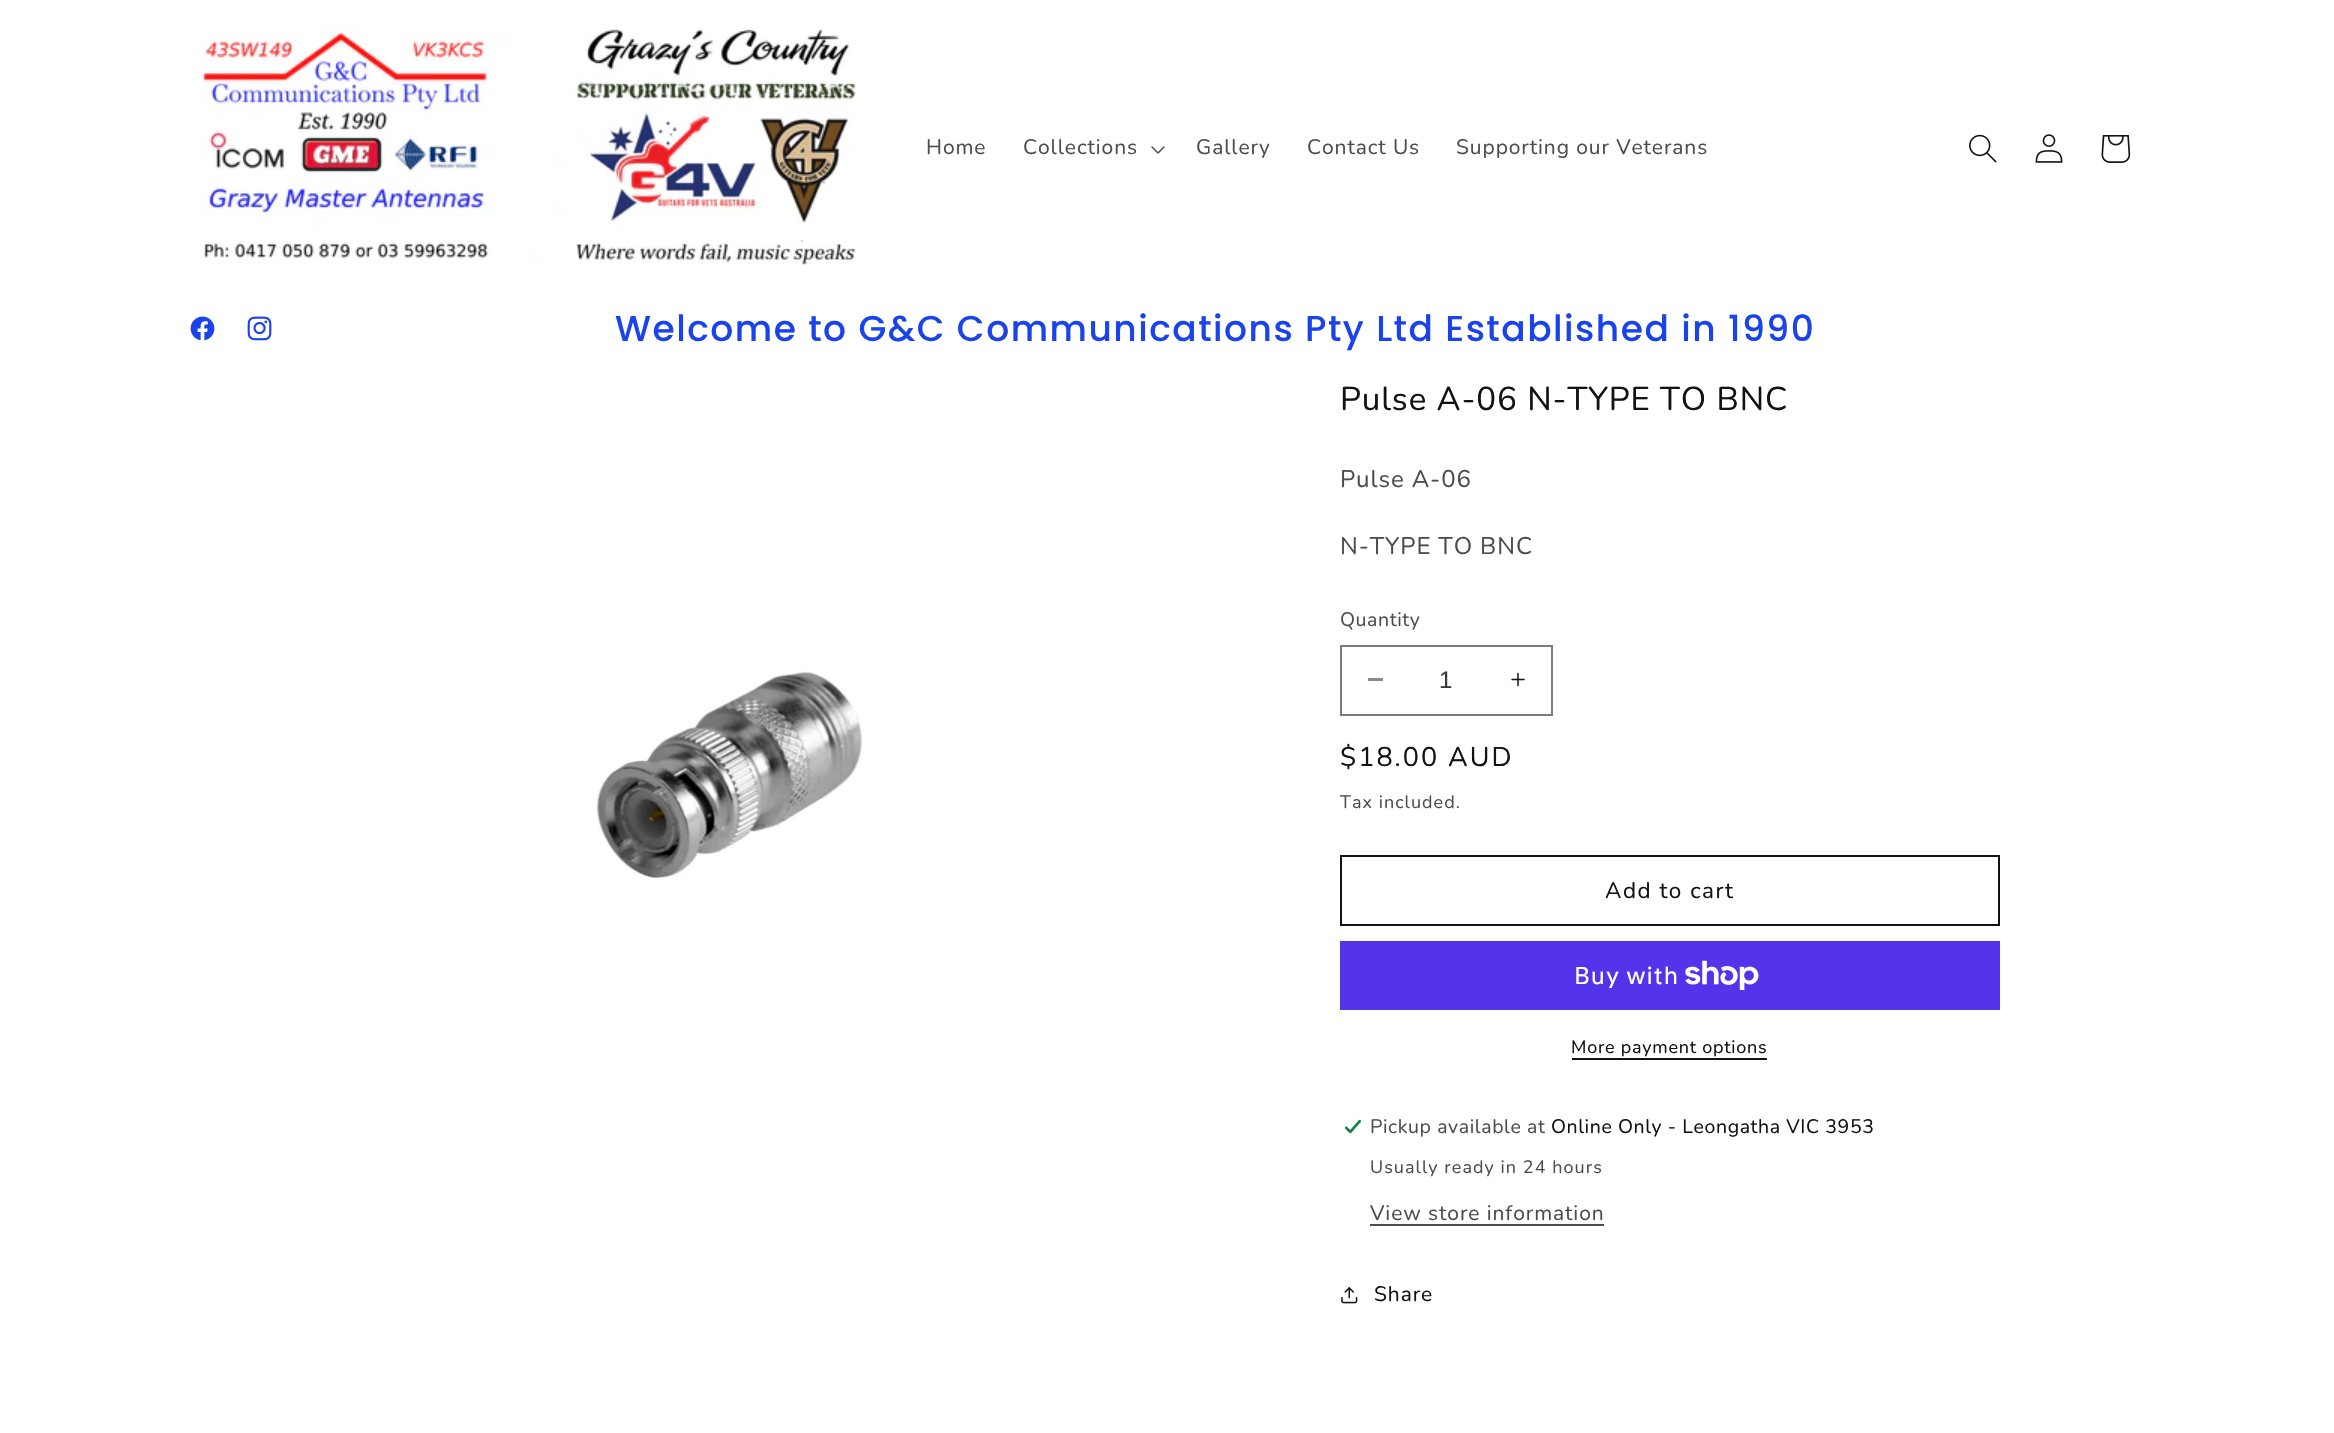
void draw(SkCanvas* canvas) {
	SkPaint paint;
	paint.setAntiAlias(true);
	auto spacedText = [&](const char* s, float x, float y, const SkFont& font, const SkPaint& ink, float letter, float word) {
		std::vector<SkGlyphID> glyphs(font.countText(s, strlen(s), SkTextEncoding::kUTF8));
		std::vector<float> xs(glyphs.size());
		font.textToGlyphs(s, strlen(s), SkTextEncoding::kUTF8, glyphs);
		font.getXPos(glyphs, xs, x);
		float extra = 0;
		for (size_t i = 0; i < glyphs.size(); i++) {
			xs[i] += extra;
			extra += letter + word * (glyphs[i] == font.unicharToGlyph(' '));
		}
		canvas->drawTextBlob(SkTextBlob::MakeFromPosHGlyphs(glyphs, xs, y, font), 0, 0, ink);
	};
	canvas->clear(0xffffffff);
	canvas->drawImageRect(SkImages::DeferredFromEncodedData(SkData::MakeFromFileName("img1.png")), SkRect::MakeXYWH(202, 24, 656, 241), SkSamplingOptions());
	SkFont f1(fontMgr->matchFamilyStyle("Nunito", SkFontStyle::Normal()), 21);
	f1.setSubpixel(true);
	paint.setColor(0xff4d4d4d);
	spacedText("Home", 926, 154, f1, paint, 0.9, 0);
	spacedText("Collections", 1023, 154, f1, paint, 0.9, 0);
	canvas->drawImageRect(SkImages::DeferredFromEncodedData(SkData::MakeFromFileName("img2.png")), SkRect::MakeXYWH(1151, 146, 14, 8), SkSamplingOptions());
	spacedText("Gallery", 1196, 154, f1, paint, 0.9, 0);
	spacedText("Contact Us", 1307, 154, f1, paint, 0.9, 0);
	spacedText("Supporting our Veterans", 1456, 154, f1, paint, 0.9, 0);
	canvas->drawImageRect(SkImages::DeferredFromEncodedData(SkData::MakeFromFileName("img3.png")), SkRect::MakeXYWH(1969, 134, 28, 29), SkSamplingOptions());
	canvas->drawImageRect(SkImages::DeferredFromEncodedData(SkData::MakeFromFileName("img4.png")), SkRect::MakeXYWH(2035, 134, 28, 29), SkSamplingOptions());
	canvas->drawImageRect(SkImages::DeferredFromEncodedData(SkData::MakeFromFileName("img5.png")), SkRect::MakeXYWH(2101, 135, 30, 28), SkSamplingOptions());
	canvas->drawImageRect(SkImages::DeferredFromEncodedData(SkData::MakeFromFileName("img6.png")), SkRect::MakeXYWH(190, 316, 25, 25), SkSamplingOptions());
	canvas->drawImageRect(SkImages::DeferredFromEncodedData(SkData::MakeFromFileName("img7.png")), SkRect::MakeXYWH(247, 316, 25, 25), SkSamplingOptions());
	SkFont f2(fontMgr->matchFamilyStyle("Poppins", SkFontStyle(500, SkFontStyle::kNormal_Width, SkFontStyle::kUpright_Slant)), 36);
	f2.setSubpixel(true);
	paint.setColor(0xff1b43ec);
	spacedText("Welcome to G&C Communications Pty Ltd Established in 1990", 615, 341, f2, paint, 1.5, 0);
	canvas->drawImageRect(SkImages::DeferredFromEncodedData(SkData::MakeFromFileName("img8.png")), SkRect::MakeXYWH(596, 670, 267, 210), SkSamplingOptions());
	SkFont f3(fontMgr->matchFamilyStyle("Nunito", SkFontStyle::Normal()), 33);
	f3.setSubpixel(true);
	paint.setColor(0xff121212);
	spacedText("Pulse A-06 N-TYPE TO BNC", 1340, 410, f3, paint, 0.9, 0);
	SkFont f4(fontMgr->matchFamilyStyle("Nunito", SkFontStyle::Normal()), 24);
	f4.setSubpixel(true);
	paint.setColor(0xff4d4d4d);
	spacedText("Pulse A-06", 1340, 487, f4, paint, 0.9, 0);
	spacedText("N-TYPE TO BNC", 1340, 554, f4, paint, 0.9, 0);
	SkFont f5(fontMgr->matchFamilyStyle("Nunito", SkFontStyle::Normal()), 19.5);
	f5.setSubpixel(true);
	spacedText("Quantity", 1340, 626, f5, paint, 0.6, 0);
	paint.setColor(0xff898989);
	canvas->drawRect(SkRect::MakeXYWH(1368, 678, 15, 3), paint);
	canvas->drawImageRect(SkImages::DeferredFromEncodedData(SkData::MakeFromFileName("img9.png")), SkRect::MakeXYWH(1511, 672, 14, 15), SkSamplingOptions());
	paint.setStroke(true);
	paint.setStrokeWidth(2);
	paint.setColor(0xff7d7d7d);
	canvas->drawRect(SkRect::MakeXYWH(1341, 646, 211, 69), paint);
	SkFont f6(fontMgr->matchFamilyStyle("Liberation Sans", SkFontStyle::Normal()), 24);
	f6.setSubpixel(true);
	paint.setStroke(false);
	paint.setColor(0xff363636);
	canvas->drawString("1", 1439, 688, f6, paint);
	SkFont f7(fontMgr->matchFamilyStyle("Nunito", SkFontStyle::Normal()), 27);
	f7.setSubpixel(true);
	paint.setColor(0xff121212);
	spacedText("$18.00 AUD", 1340, 766, f7, paint, 2, 0);
	SkFont f8(fontMgr->matchFamilyStyle("Nunito", SkFontStyle::Normal()), 18);
	f8.setSubpixel(true);
	paint.setColor(0xff4d4d4d);
	spacedText("Tax included.", 1340, 808, f8, paint, 1.05, 0);
	paint.setStroke(true);
	paint.setColor(0xff121212);
	canvas->drawRect(SkRect::MakeXYWH(1341, 856, 658, 69), paint);
	SkFont f9(fontMgr->matchFamilyStyle("Nunito", SkFontStyle::Normal()), 22.5);
	f9.setSubpixel(true);
	paint.setStroke(false);
	spacedText("Add to cart", 1605, 898, f9, paint, 1.5, 0);
	paint.setColor(0xff5433eb);
	canvas->drawRect(SkRect::MakeXYWH(1340, 941, 660, 69), paint);
	SkFont f10(fontMgr->matchFamilyStyle("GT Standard", SkFontStyle::Normal()), 24);
	f10.setSubpixel(true);
	paint.setColor(0xffffffff);
	spacedText("Buy with", 1574, 984, f10, paint, 0.9, 0);
	canvas->drawImageRect(SkImages::DeferredFromEncodedData(SkData::MakeFromFileName("img10.png")), SkRect::MakeXYWH(1685, 960, 74, 30), SkSamplingOptions());
	paint.setColor(0xff121212);
	spacedText("More payment options", 1571, 1053, f8, paint, 0.75, 0);
	canvas->drawRect(SkRect::MakeXYWH(1572, 1058, 195, 2), paint);
	canvas->drawImageRect(SkImages::DeferredFromEncodedData(SkData::MakeFromFileName("img11.png")), SkRect::MakeXYWH(1344, 1119, 18, 15), SkSamplingOptions());
	paint.setColor(0xff4d4d4d);
	spacedText("Pickup available at", 1370, 1133, f5, paint, 0.6, 0);
	paint.setColor(0xff121212);
	spacedText("Online Only - Leongatha VIC 3953", 1551, 1133, f5, paint, 0.6, 0);
	paint.setColor(0xff4d4d4d);
	spacedText("Usually ready in 24 hours", 1370, 1173, f8, paint, 1.05, 0);
	spacedText("View store information", 1370, 1220, f1, paint, 0.9, 0);
	canvas->drawRect(SkRect::MakeXYWH(1370, 1224, 234, 2), paint);
	canvas->drawImageRect(SkImages::DeferredFromEncodedData(SkData::MakeFromFileName("img12.png")), SkRect::MakeXYWH(1341, 1287, 17, 17), SkSamplingOptions());
	paint.setColor(0xff121212);
	spacedText("Share", 1374, 1301, f1, paint, 0.9, 0);
}
